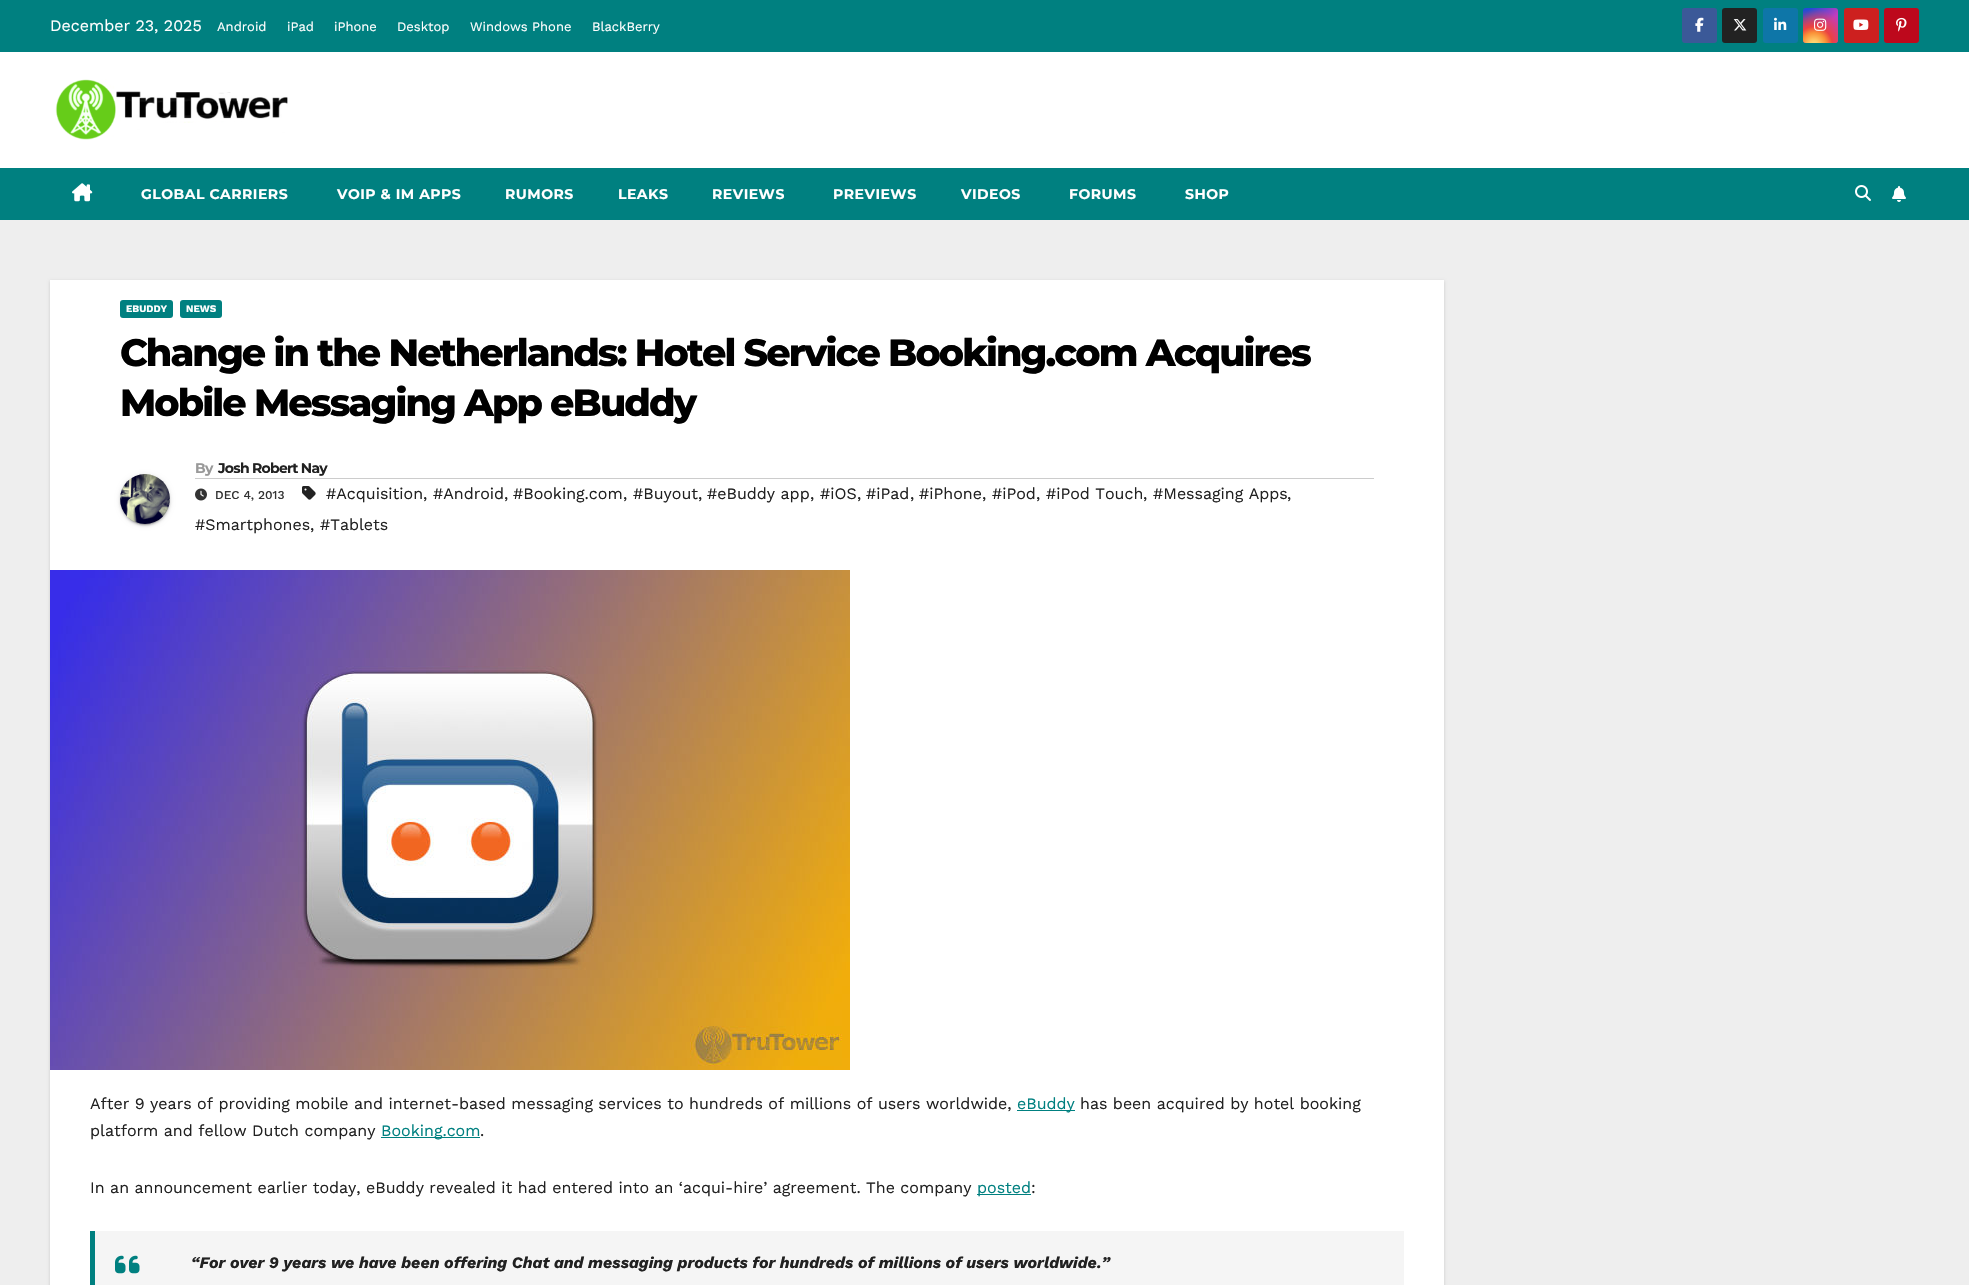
void draw(SkCanvas* canvas) {
	SkPaint paint;
	paint.setAntiAlias(true);
	auto spacedText = [&](const char* s, float x, float y, const SkFont& font, const SkPaint& ink, float letter, float word) {
		std::vector<SkGlyphID> glyphs(font.countText(s, strlen(s), SkTextEncoding::kUTF8));
		std::vector<float> xs(glyphs.size());
		font.textToGlyphs(s, strlen(s), SkTextEncoding::kUTF8, glyphs);
		font.getXPos(glyphs, xs, x);
		float extra = 0;
		for (size_t i = 0; i < glyphs.size(); i++) {
			xs[i] += extra;
			extra += letter + word * (glyphs[i] == font.unicharToGlyph(' '));
		}
		canvas->drawTextBlob(SkTextBlob::MakeFromPosHGlyphs(glyphs, xs, y, font), 0, 0, ink);
	};
	canvas->clear(0xffeeeeee);
	paint.setColor(0xff008080);
	canvas->drawRect(SkRect::MakeXYWH(0, 0, 1969, 52), paint);
	SkFont f1(fontMgr->matchFamilyStyle("Work Sans", SkFontStyle::Normal()), 16);
	f1.setSubpixel(true);
	paint.setColor(0xffffffff);
	canvas->drawString("December 23, 2025", 50, 31, f1, paint);
	SkFont f2(fontMgr->matchFamilyStyle("Work Sans", SkFontStyle::Normal()), 13);
	f2.setSubpixel(true);
	canvas->drawString("Android", 217, 31, f2, paint);
	canvas->drawString("iPad", 287, 31, f2, paint);
	canvas->drawString("iPhone", 334, 31, f2, paint);
	canvas->drawString("Desktop", 397, 31, f2, paint);
	canvas->drawString("Windows Phone", 470, 31, f2, paint);
	canvas->drawString("BlackBerry", 592, 31, f2, paint);
	paint.setColor(0xff3b5998);
	canvas->drawRoundRect(SkRect::MakeXYWH(1682, 8, 35, 35), 3, 3, paint);
	canvas->drawImageRect(SkImages::DeferredFromEncodedData(SkData::MakeFromFileName("img1.png")), SkRect::MakeXYWH(1695, 17, 9, 15), SkSamplingOptions());
	paint.setColor(0xff222222);
	canvas->drawRoundRect(SkRect::MakeXYWH(1722, 8, 35, 35), 3, 3, paint);
	canvas->drawImageRect(SkImages::DeferredFromEncodedData(SkData::MakeFromFileName("img2.png")), SkRect::MakeXYWH(1733, 19, 14, 12), SkSamplingOptions());
	paint.setColor(0xff0e76a8);
	canvas->drawRoundRect(SkRect::MakeXYWH(1763, 8, 35, 35), 3, 3, paint);
	canvas->drawImageRect(SkImages::DeferredFromEncodedData(SkData::MakeFromFileName("img3.png")), SkRect::MakeXYWH(1774, 17, 13, 13), SkSamplingOptions());
	{
		const SkColor colors[] = {0xff234bd7, 0xffc33cbe};
		const float stops[] = {0.12, 0.58};
		const SkPoint ends[] = {{1803, 8}, {1838, 43}};
		paint.setShader(SkGradientShader::MakeLinear(ends, colors, stops, 2, SkTileMode::kClamp));
		paint.setAlpha(255);
	}
	canvas->drawRoundRect(SkRect::MakeXYWH(1803, 8, 35, 35), 3, 3, paint);
	{
		const SkColor colors[] = {0xffffe17d, 0xffffcd69, 0xfffa9137, 0xffeb4141, 0x00eb4141};
		const float stops[] = {0, 0.1, 0.28, 0.42, 0.82};
		paint.setShader(SkGradientShader::MakeRadial({1814, 45}, 44, colors, stops, 5, SkTileMode::kClamp));
		paint.setAlpha(255);
	}
	canvas->drawRoundRect(SkRect::MakeXYWH(1803, 8, 35, 35), 3, 3, paint);
	canvas->drawImageRect(SkImages::DeferredFromEncodedData(SkData::MakeFromFileName("img4.png")), SkRect::MakeXYWH(1814, 18, 13, 13), SkSamplingOptions());
	paint.setShader(nullptr);
	paint.setColor(0xffcd201f);
	canvas->drawRoundRect(SkRect::MakeXYWH(1844, 8, 35, 35), 3, 3, paint);
	canvas->drawImageRect(SkImages::DeferredFromEncodedData(SkData::MakeFromFileName("img5.png")), SkRect::MakeXYWH(1853, 19, 16, 11), SkSamplingOptions());
	paint.setColor(0xffbd081c);
	canvas->drawRoundRect(SkRect::MakeXYWH(1884, 8, 35, 35), 3, 3, paint);
	canvas->drawImageRect(SkImages::DeferredFromEncodedData(SkData::MakeFromFileName("img6.png")), SkRect::MakeXYWH(1896, 17, 11, 15), SkSamplingOptions());
	paint.setColor(0xffffffff);
	canvas->drawRect(SkRect::MakeXYWH(0, 52, 1969, 116), paint);
	canvas->drawImageRect(SkImages::DeferredFromEncodedData(SkData::MakeFromFileName("img7.png")), SkRect::MakeXYWH(55, 79, 233, 61), SkSamplingOptions());
	paint.setColor(0xff008080);
	canvas->drawRect(SkRect::MakeXYWH(0, 168, 1969, 52), paint);
	canvas->drawImageRect(SkImages::DeferredFromEncodedData(SkData::MakeFromFileName("img8.png")), SkRect::MakeXYWH(72, 183, 21, 19), SkSamplingOptions());
	SkFont f3(fontMgr->matchFamilyStyle("Montserrat", SkFontStyle::Bold()), 14);
	f3.setSubpixel(true);
	paint.setColor(0xffffffff);
	spacedText("GLOBAL CARRIERS", 141, 199, f3, paint, 0.5, 0);
	spacedText("VOIP & IM APPS", 337, 199, f3, paint, 0.5, 0);
	spacedText("RUMORS", 505, 199, f3, paint, 0.5, 0);
	spacedText("LEAKS", 618, 199, f3, paint, 0.5, 0);
	spacedText("REVIEWS", 712, 199, f3, paint, 0.5, 0);
	spacedText("PREVIEWS", 833, 199, f3, paint, 0.5, 0);
	spacedText("VIDEOS", 961, 199, f3, paint, 0.5, 0);
	spacedText("FORUMS", 1069, 199, f3, paint, 0.5, 0);
	spacedText("SHOP", 1185, 199, f3, paint, 0.5, 0);
	canvas->drawImageRect(SkImages::DeferredFromEncodedData(SkData::MakeFromFileName("img9.png")), SkRect::MakeXYWH(1855, 185, 16, 16), SkSamplingOptions());
	canvas->drawImageRect(SkImages::DeferredFromEncodedData(SkData::MakeFromFileName("img10.png")), SkRect::MakeXYWH(1892, 186, 14, 16), SkSamplingOptions());
	paint.setColor(0x26000000);
	paint.setMaskFilter(SkMaskFilter::MakeBlur(kNormal_SkBlurStyle, 1.5));
	canvas->drawRect(SkRect::MakeXYWH(50, 281, 1394, 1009), paint);
	paint.setMaskFilter(nullptr);
	paint.setColor(0xffffffff);
	canvas->drawRect(SkRect::MakeXYWH(50, 280, 1394, 1005), paint);
	paint.setColor(0xff008080);
	canvas->drawRoundRect(SkRect::MakeXYWH(120, 300, 53, 18), 3, 3, paint);
	SkFont f4(fontMgr->matchFamilyStyle("Work Sans", SkFontStyle::Bold()), 10);
	f4.setSubpixel(true);
	paint.setColor(0xffffffff);
	canvas->drawString("EBUDDY", 126, 312, f4, paint);
	paint.setColor(0xff008080);
	canvas->drawRoundRect(SkRect::MakeXYWH(180, 300, 42, 18), 3, 3, paint);
	paint.setColor(0xffffffff);
	canvas->drawString("NEWS", 186, 312, f4, paint);
	SkFont f5(fontMgr->matchFamilyStyle("Montserrat", SkFontStyle(800, SkFontStyle::kNormal_Width, SkFontStyle::kUpright_Slant)), 38);
	f5.setSubpixel(true);
	paint.setColor(0xff000000);
	spacedText("Change in the Netherlands: Hotel Service Booking.com Acquires", 120, 366, f5, paint, -1.9, 0);
	spacedText("Mobile Messaging App eBuddy", 120, 416, f5, paint, -1.9, 0);
	paint.setColor(0x1f000000);
	paint.setMaskFilter(SkMaskFilter::MakeBlur(kNormal_SkBlurStyle, 2.5));
	canvas->drawRoundRect(SkRect::MakeXYWH(120, 475, 50, 50), 25, 25, paint);
	paint.setMaskFilter(nullptr);
	paint.setColor(0x33000000);
	paint.setMaskFilter(SkMaskFilter::MakeBlur(kNormal_SkBlurStyle, 0.5));
	canvas->drawRoundRect(SkRect::MakeXYWH(122, 479, 46, 46), 23, 23, paint);
	paint.setMaskFilter(nullptr);
	paint.setColor(0x24000000);
	paint.setMaskFilter(SkMaskFilter::MakeBlur(kNormal_SkBlurStyle, 1));
	canvas->drawRoundRect(SkRect::MakeXYWH(120, 476, 50, 50), 25, 25, paint);
	paint.setMaskFilter(nullptr);
	canvas->drawImageRect(SkImages::DeferredFromEncodedData(SkData::MakeFromFileName("img11.png")), SkRect::MakeXYWH(120, 474, 50, 50), SkSamplingOptions());
	paint.setColor(0xffcccccc);
	canvas->drawRect(SkRect::MakeXYWH(195, 478, 1179, 1), paint);
	paint.setColor(0xff999999);
	spacedText("By", 195, 473, f3, paint, -0.75, 0);
	paint.setColor(0xff212121);
	spacedText("Josh Robert Nay", 218, 473, f3, paint, -0.75, 0);
	canvas->drawImageRect(SkImages::DeferredFromEncodedData(SkData::MakeFromFileName("img12.png")), SkRect::MakeXYWH(302, 486, 14, 14), SkSamplingOptions());
	canvas->drawString("#Acquisition", 326, 499, f1, paint);
	canvas->drawString(",", 423, 499, f1, paint);
	canvas->drawString("#Android", 433, 499, f1, paint);
	canvas->drawString(",", 504, 499, f1, paint);
	canvas->drawString("#Booking.com", 513, 499, f1, paint);
	canvas->drawString(",", 623, 499, f1, paint);
	canvas->drawString("#Buyout", 633, 499, f1, paint);
	canvas->drawString(",", 698, 499, f1, paint);
	canvas->drawString("#eBuddy app", 707, 499, f1, paint);
	canvas->drawString(",", 810, 499, f1, paint);
	canvas->drawString("#iOS", 820, 499, f1, paint);
	canvas->drawString(",", 857, 499, f1, paint);
	canvas->drawString("#iPad", 866, 499, f1, paint);
	canvas->drawString(",", 910, 499, f1, paint);
	canvas->drawString("#iPhone", 919, 499, f1, paint);
	canvas->drawString(",", 982, 499, f1, paint);
	canvas->drawString("#iPod", 992, 499, f1, paint);
	canvas->drawString(",", 1036, 499, f1, paint);
	canvas->drawString("#iPod Touch", 1046, 499, f1, paint);
	canvas->drawString(",", 1143, 499, f1, paint);
	canvas->drawString("#Messaging Apps", 1153, 499, f1, paint);
	canvas->drawString(",", 1287, 499, f1, paint);
	canvas->drawString("#Smartphones", 195, 530, f1, paint);
	canvas->drawString(",", 310, 530, f1, paint);
	canvas->drawString("#Tablets", 320, 530, f1, paint);
	canvas->drawImageRect(SkImages::DeferredFromEncodedData(SkData::MakeFromFileName("img13.png")), SkRect::MakeXYWH(195, 488, 12, 13), SkSamplingOptions());
	SkFont f6(fontMgr->matchFamilyStyle("Work Sans", SkFontStyle(500, SkFontStyle::kNormal_Width, SkFontStyle::kUpright_Slant)), 12);
	f6.setSubpixel(true);
	paint.setColor(0xff333333);
	canvas->drawString("DEC 4, 2013", 215, 499, f6, paint);
	canvas->drawImageRect(SkImages::DeferredFromEncodedData(SkData::MakeFromFileName("img14.png")), SkRect::MakeXYWH(50, 570, 800, 500), SkSamplingOptions());
	paint.setColor(0xff212121);
	canvas->drawString("After 9 years of providing mobile and internet-based messaging services to hundreds of millions of users worldwide,", 90, 1109, f1, paint);
	paint.setColor(0xff008080);
	canvas->drawRect(SkRect::MakeXYWH(1017, 1110, 58, 1), paint);
	canvas->drawString("eBuddy", 1017, 1109, f1, paint);
	paint.setColor(0xff212121);
	canvas->drawString("has been acquired by hotel booking", 1080, 1109, f1, paint);
	canvas->drawString("platform and fellow Dutch company", 90, 1136, f1, paint);
	paint.setColor(0xff008080);
	canvas->drawRect(SkRect::MakeXYWH(381, 1137, 99, 1), paint);
	canvas->drawString("Booking.com", 381, 1136, f1, paint);
	paint.setColor(0xff212121);
	canvas->drawString(".", 480, 1136, f1, paint);
	canvas->drawString("In an announcement earlier today, eBuddy revealed it had entered into an ‘acqui-hire’ agreement. The company", 90, 1193, f1, paint);
	paint.setColor(0xff008080);
	canvas->drawRect(SkRect::MakeXYWH(977, 1194, 54, 1), paint);
	canvas->drawString("posted", 977, 1193, f1, paint);
	paint.setColor(0xff212121);
	canvas->drawString(":", 1031, 1193, f1, paint);
	paint.setColor(0xfff5f5f5);
	canvas->drawRect(SkRect::MakeXYWH(95, 1231, 1309, 54), paint);
	paint.setColor(0xff008080);
	canvas->drawRect(SkRect::MakeXYWH(90, 1231, 5, 54), paint);
	canvas->drawImageRect(SkImages::DeferredFromEncodedData(SkData::MakeFromFileName("img15.png")), SkRect::MakeXYWH(115, 1255, 25, 19), SkSamplingOptions());
	SkFont f7(fontMgr->matchFamilyStyle("Work Sans", SkFontStyle::BoldItalic()), 16);
	f7.setSubpixel(true);
	paint.setColor(0xff212121);
	canvas->drawString("“For over 9 years we have been offering Chat and messaging products for hundreds of millions of users worldwide.”", 191, 1268, f7, paint);
}
